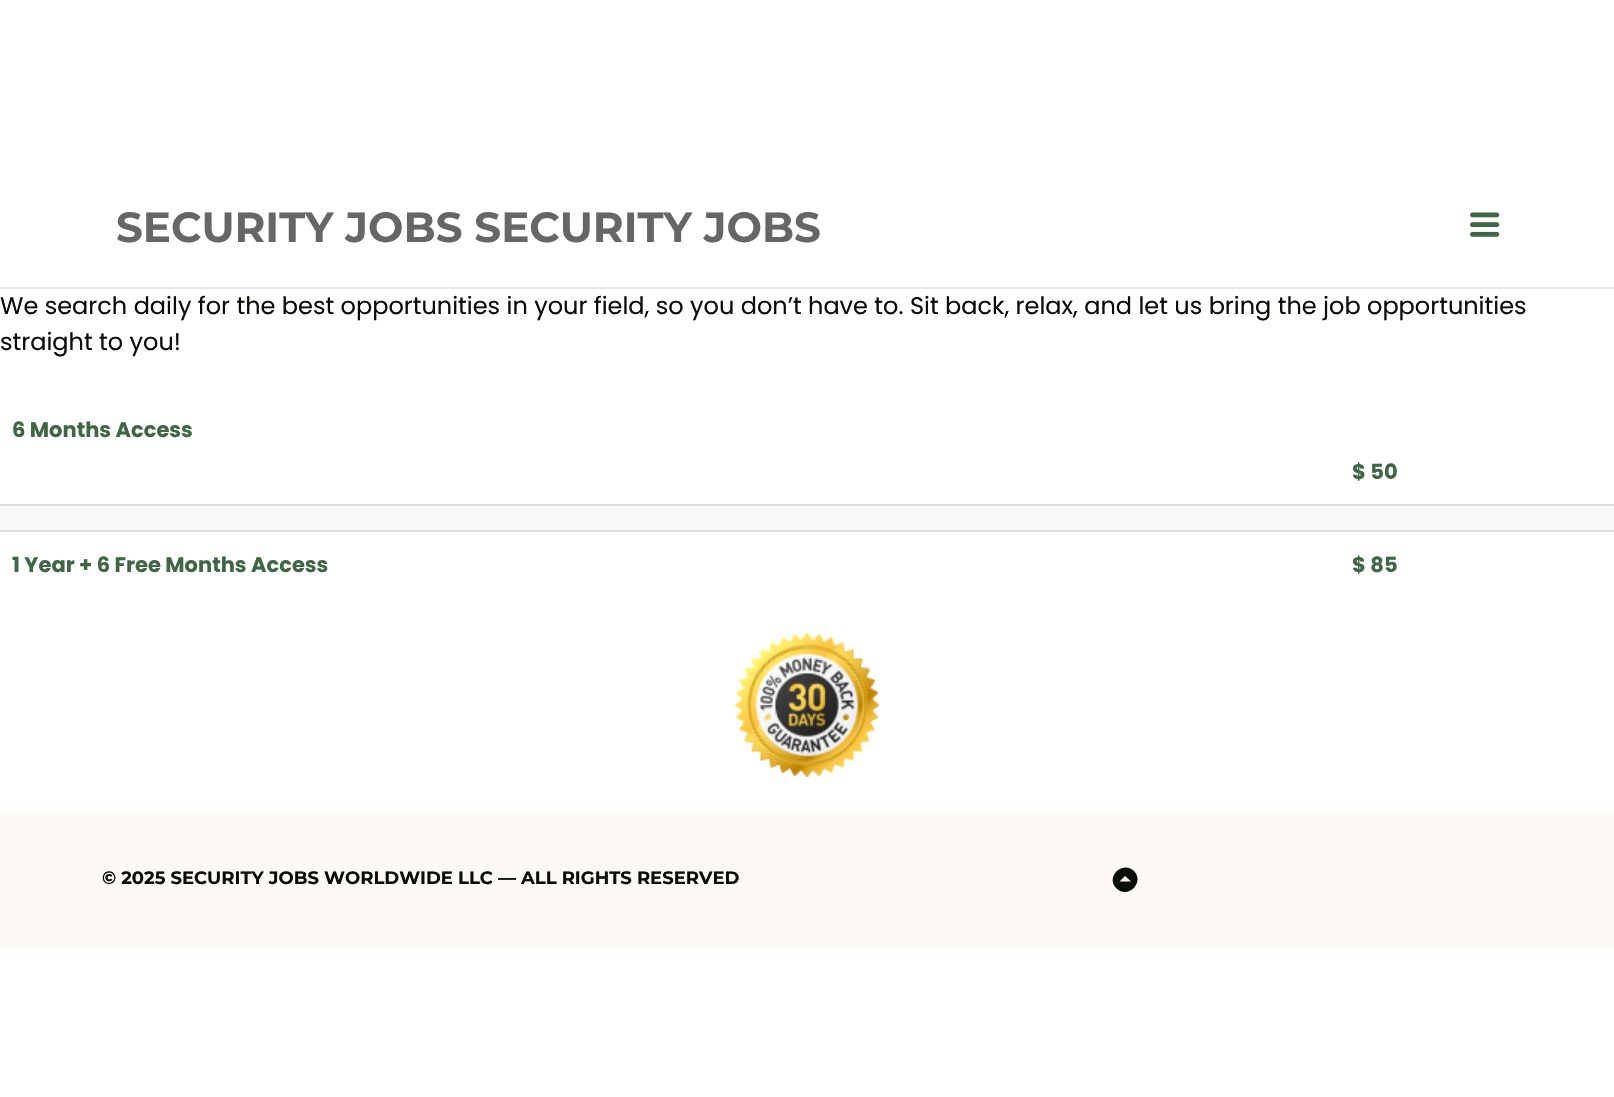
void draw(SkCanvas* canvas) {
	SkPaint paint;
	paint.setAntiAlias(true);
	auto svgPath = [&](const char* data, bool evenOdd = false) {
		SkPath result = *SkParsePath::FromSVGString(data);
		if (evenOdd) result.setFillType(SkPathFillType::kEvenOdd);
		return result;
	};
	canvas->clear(0xffffffff);
	paint.setColor(0xffe6e6e6);
	canvas->drawRect(SkRect::MakeXYWH(0, 287, 1614, 2), paint);
	SkFont f1(fontMgr->matchFamilyStyle("Montserrat", SkFontStyle::Bold()), 42);
	f1.setSubpixel(true);
	paint.setColor(0xff666666);
	canvas->drawString("SECURITY JOBS SECURITY JOBS", 116, 242, f1, paint);
	canvas->drawImageRect(SkImages::DeferredFromEncodedData(SkData::MakeFromFileName("img1.png")), SkRect::MakeXYWH(1470, 212, 30, 25), SkSamplingOptions());
	SkFont f2(fontMgr->matchFamilyStyle("Poppins", SkFontStyle::Normal()), 24);
	f2.setSubpixel(true);
	paint.setColor(0xff080d07);
	canvas->drawString("We search daily for the best opportunities in your field, so you don’t have to. Sit back, relax, and let us bring the job opportunities", 0, 314, f2, paint);
	canvas->drawString("straight to you!", 0, 350, f2, paint);
	SkFont f3(fontMgr->matchFamilyStyle("Poppins", SkFontStyle::Bold()), 21);
	f3.setSubpixel(true);
	paint.setColor(0xff3f6745);
	canvas->drawString("6 Months Access", 12, 437, f3, paint);
	canvas->drawString("$ 50", 1352, 479, f3, paint);
	paint.setColor(0xffdddddd);
	canvas->drawRect(SkRect::MakeXYWH(0, 504, 1614, 2), paint);
	paint.setColor(0xfff9f9f9);
	canvas->drawRect(SkRect::MakeXYWH(0, 506, 1614, 24), paint);
	paint.setColor(0xff3f6745);
	canvas->drawString("1 Year + 6 Free Months Access", 12, 572, f3, paint);
	paint.setColor(0xffdddddd);
	canvas->drawRect(SkRect::MakeXYWH(0, 530, 1614, 2), paint);
	paint.setColor(0xff3f6745);
	canvas->drawString("$ 85", 1352, 572, f3, paint);
	canvas->drawImageRect(SkImages::DeferredFromEncodedData(SkData::MakeFromFileName("img2.png")), SkRect::MakeXYWH(735, 633, 144, 144), SkSamplingOptions());
	paint.setColor(0xfffdf9f6);
	canvas->drawRect(SkRect::MakeXYWH(0, 813, 1614, 135), paint);
	SkFont f4(fontMgr->matchFamilyStyle("Montserrat", SkFontStyle::Bold()), 18);
	f4.setSubpixel(true);
	paint.setColor(0xff080d07);
	canvas->drawString("© 2025 SECURITY JOBS WORLDWIDE LLC — ALL RIGHTS RESERVED", 102, 884, f4, paint);
	canvas->drawPath(svgPath("M1134 871C1145 882.5 1128 899.5 1116.5 888.5C1105 877 1122.5 860 1134 871ZM1131 881.5L1125 876L1119.5 881.5Z"), paint);
}
